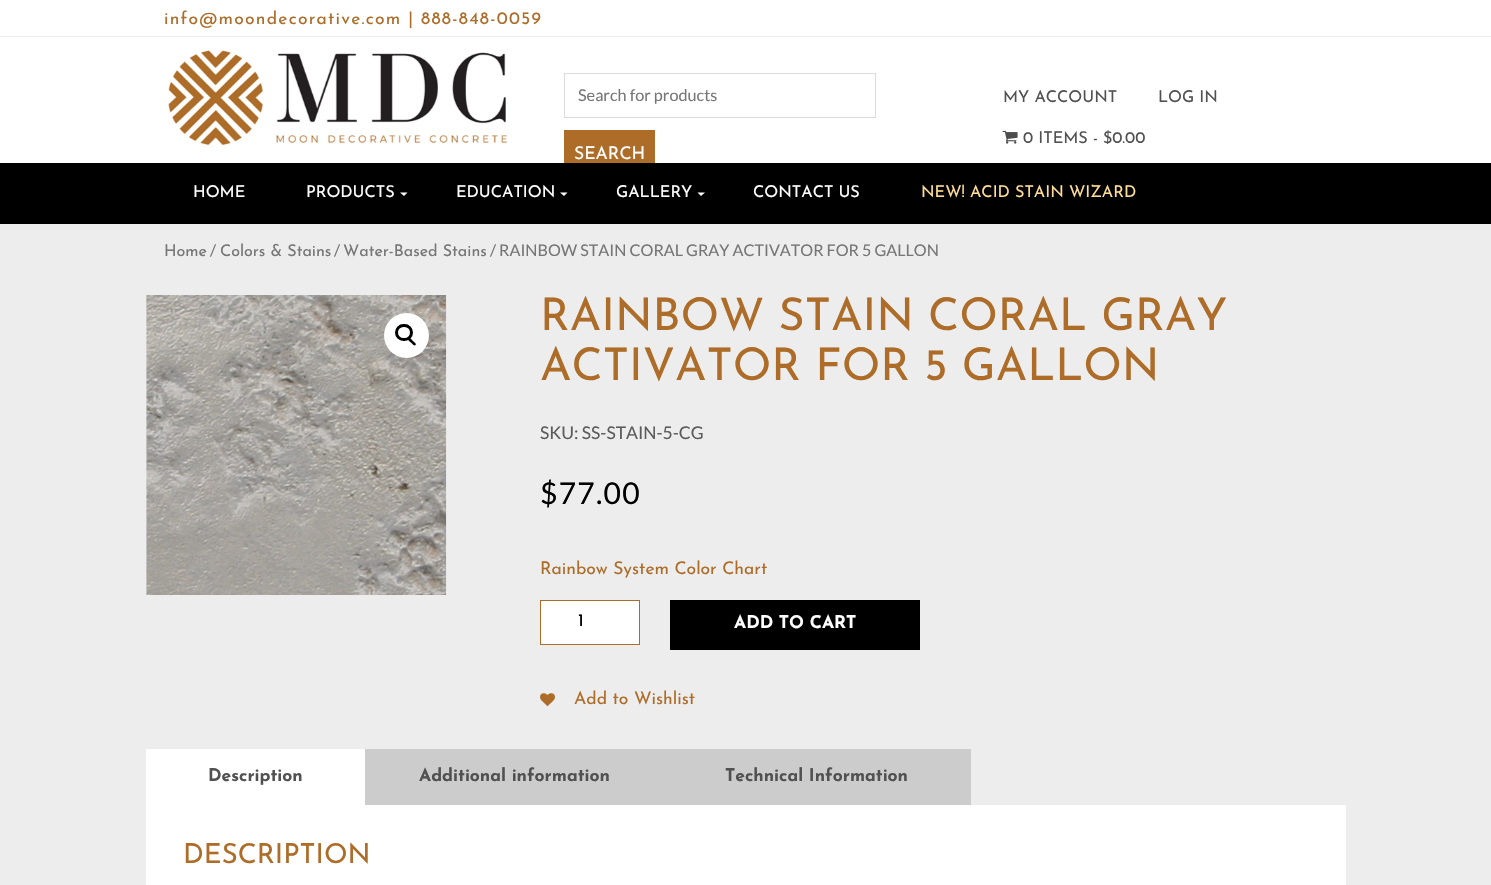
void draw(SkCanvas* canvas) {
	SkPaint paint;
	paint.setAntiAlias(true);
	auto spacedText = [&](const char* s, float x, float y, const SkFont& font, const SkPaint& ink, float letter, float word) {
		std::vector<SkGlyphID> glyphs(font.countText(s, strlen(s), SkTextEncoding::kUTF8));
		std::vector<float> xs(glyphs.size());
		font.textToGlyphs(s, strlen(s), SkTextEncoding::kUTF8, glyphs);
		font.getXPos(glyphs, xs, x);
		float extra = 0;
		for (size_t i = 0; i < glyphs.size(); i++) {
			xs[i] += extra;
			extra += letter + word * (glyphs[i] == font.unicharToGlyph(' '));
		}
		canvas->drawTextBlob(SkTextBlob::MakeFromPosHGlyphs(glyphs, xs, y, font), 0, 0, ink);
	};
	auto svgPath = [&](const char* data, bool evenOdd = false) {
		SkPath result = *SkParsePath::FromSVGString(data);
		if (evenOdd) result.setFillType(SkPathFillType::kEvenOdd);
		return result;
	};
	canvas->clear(0xffededed);
	paint.setColor(0xffffffff);
	canvas->drawRect(SkRect::MakeXYWH(0, 0, 1491, 163), paint);
	paint.setColor(0xffededed);
	canvas->drawRect(SkRect::MakeXYWH(0, 36, 1491, 1), paint);
	SkFont f1(fontMgr->matchFamilyStyle("Josefin Sans", SkFontStyle::Normal()), 17.5);
	f1.setSubpixel(true);
	paint.setColor(0xffad6d29);
	spacedText("info@moondecorative.com | 888-848-0059", 164, 24, f1, paint, 1.25, 0);
	canvas->drawImageRect(SkImages::DeferredFromEncodedData(SkData::MakeFromFileName("img1.png")), SkRect::MakeXYWH(168, 50, 339, 96), SkSamplingOptions());
	paint.setStroke(true);
	paint.setStrokeWidth(1);
	paint.setColor(0xffdcdcdc);
	canvas->drawRect(SkRect::MakeXYWH(564.5, 73.5, 311, 44), paint);
	SkFont f2(fontMgr->matchFamilyStyle("Lato", SkFontStyle::Normal()), 16.25);
	f2.setSubpixel(true);
	paint.setStroke(false);
	paint.setColor(0xff767676);
	canvas->drawString("Search for products", 578, 101, f2, paint);
	paint.setColor(0xffad6d29);
	canvas->drawRect(SkRect::MakeXYWH(564, 130, 91, 33), paint);
	paint.setColor(0xffffffff);
	canvas->drawString("SEARCH", 574, 159, f1, paint);
	SkFont f3(fontMgr->matchFamilyStyle("Josefin Sans", SkFontStyle::Normal()), 16.25);
	f3.setSubpixel(true);
	paint.setColor(0xff515151);
	canvas->drawString("MY ACCOUNT", 1003, 102, f3, paint);
	canvas->drawString("LOG IN", 1158, 102, f3, paint);
	canvas->drawImageRect(SkImages::DeferredFromEncodedData(SkData::MakeFromFileName("img2.png")), SkRect::MakeXYWH(1002, 130, 16, 14), SkSamplingOptions());
	canvas->drawString("0 ITEMS - $0.00", 1023, 143, f3, paint);
	paint.setColor(0xff000000);
	canvas->drawRect(SkRect::MakeXYWH(0, 163, 1491, 61), paint);
	paint.setColor(0xffffffff);
	canvas->drawString("HOME", 193, 197, f3, paint);
	canvas->drawString("PRODUCTS", 306, 197, f3, paint);
	canvas->drawPath(svgPath("M400 192.5H407.5L404 196Z"), paint);
	canvas->drawString("EDUCATION", 456, 197, f3, paint);
	canvas->drawPath(svgPath("M560 192.5H567.5L564 196Z"), paint);
	canvas->drawString("GALLERY", 616, 197, f3, paint);
	canvas->drawPath(svgPath("M697.5 192.5H705L701 196Z"), paint);
	canvas->drawString("CONTACT US", 753, 197, f3, paint);
	paint.setColor(0xffffdd96);
	canvas->drawString("NEW! ACID STAIN WIZARD", 921, 197, f3, paint);
	SkFont f4(fontMgr->matchFamilyStyle("Josefin Sans", SkFontStyle::Normal()), 16.1);
	f4.setSubpixel(true);
	paint.setColor(0xff767676);
	canvas->drawString("Home", 164, 256, f4, paint);
	SkFont f5(fontMgr->matchFamilyStyle("Lato", SkFontStyle::Normal()), 16.1);
	f5.setSubpixel(true);
	canvas->drawString("/", 210, 256, f5, paint);
	canvas->drawString("Colors & Stains", 220, 256, f4, paint);
	canvas->drawString("/", 334, 256, f5, paint);
	canvas->drawString("Water-Based Stains", 343, 256, f4, paint);
	canvas->drawString("/ RAINBOW STAIN CORAL GRAY ACTIVATOR FOR 5 GALLON", 490, 256, f5, paint);
	canvas->drawImageRect(SkImages::DeferredFromEncodedData(SkData::MakeFromFileName("img3.png")), SkRect::MakeXYWH(146, 295, 301, 300), SkSamplingOptions());
	paint.setColor(0xffffffff);
	canvas->drawCircle(406.5, 335.5, 22.5, paint);
	paint.setStroke(true);
	paint.setStrokeWidth(3);
	paint.setColor(0xff000000);
	canvas->drawRoundRect(SkRect::MakeXYWH(396.5, 325.5, 15, 14), 7, 7, paint);
	paint.setStroke(false);
	canvas->drawPath(svgPath("M408.5 338C410 336.5 412 340 413 341C413.5 341.5 417 344 415.5 345C414 346.5 412 343.5 411 342.5C410 342 407 339.5 408.5 338Z"), paint);
	SkFont f6(fontMgr->matchFamilyStyle("Josefin Sans", SkFontStyle::Normal()), 45);
	f6.setSubpixel(true);
	paint.setColor(0xffad6d29);
	canvas->drawString("RAINBOW STAIN CORAL GRAY", 540, 330, f6, paint);
	canvas->drawString("ACTIVATOR FOR 5 GALLON", 540, 380, f6, paint);
	SkFont f7(fontMgr->matchFamilyStyle("Lato", SkFontStyle::Normal()), 17.5);
	f7.setSubpixel(true);
	paint.setColor(0xff5b5b5b);
	canvas->drawString("SKU: SS-STAIN-5-CG", 540, 439, f7, paint);
	SkFont f8(fontMgr->matchFamilyStyle("Lato", SkFontStyle::Normal()), 30);
	f8.setSubpixel(true);
	paint.setColor(0xff000000);
	spacedText("$77.00", 540, 504, f8, paint, 1.25, 0);
	paint.setColor(0xffad6d29);
	canvas->drawString("Rainbow System Color Chart", 540, 574, f1, paint);
	paint.setColor(0xffffffff);
	canvas->drawRect(SkRect::MakeXYWH(540.5, 600.5, 99, 44), paint);
	paint.setStroke(true);
	paint.setStrokeWidth(1);
	paint.setColor(0xffad6d29);
	canvas->drawRect(SkRect::MakeXYWH(540.5, 600.5, 99, 44), paint);
	paint.setStroke(false);
	paint.setColor(0xff000000);
	canvas->drawString("1", 578, 626, f1, paint);
	canvas->drawRect(SkRect::MakeXYWH(670, 600, 250, 50), paint);
	SkFont f9(fontMgr->matchFamilyStyle("Josefin Sans", SkFontStyle::Bold()), 17.5);
	f9.setSubpixel(true);
	paint.setColor(0xffffffff);
	canvas->drawString("ADD TO CART", 734, 628, f9, paint);
	canvas->drawImageRect(SkImages::DeferredFromEncodedData(SkData::MakeFromFileName("img4.png")), SkRect::MakeXYWH(540, 693, 15, 13), SkSamplingOptions());
	paint.setColor(0xffad6d29);
	canvas->drawString("Add to Wishlist", 574, 704, f1, paint);
	paint.setColor(0xffffffff);
	canvas->drawRect(SkRect::MakeXYWH(146, 749, 219, 56), paint);
	paint.setColor(0xff515151);
	canvas->drawString("Description", 208, 781, f9, paint);
	paint.setColor(0xffcccccc);
	canvas->drawRect(SkRect::MakeXYWH(365, 749, 606, 56), paint);
	paint.setColor(0xff515151);
	canvas->drawString("Additional information", 419, 781, f9, paint);
	canvas->drawString("Technical Information", 725, 781, f9, paint);
	paint.setColor(0xffffffff);
	canvas->drawRect(SkRect::MakeXYWH(146, 805, 1200, 80), paint);
	SkFont f10(fontMgr->matchFamilyStyle("Josefin Sans", SkFontStyle::Normal()), 27.5);
	f10.setSubpixel(true);
	paint.setColor(0xffad6d29);
	canvas->drawString("DESCRIPTION", 183, 863, f10, paint);
}
